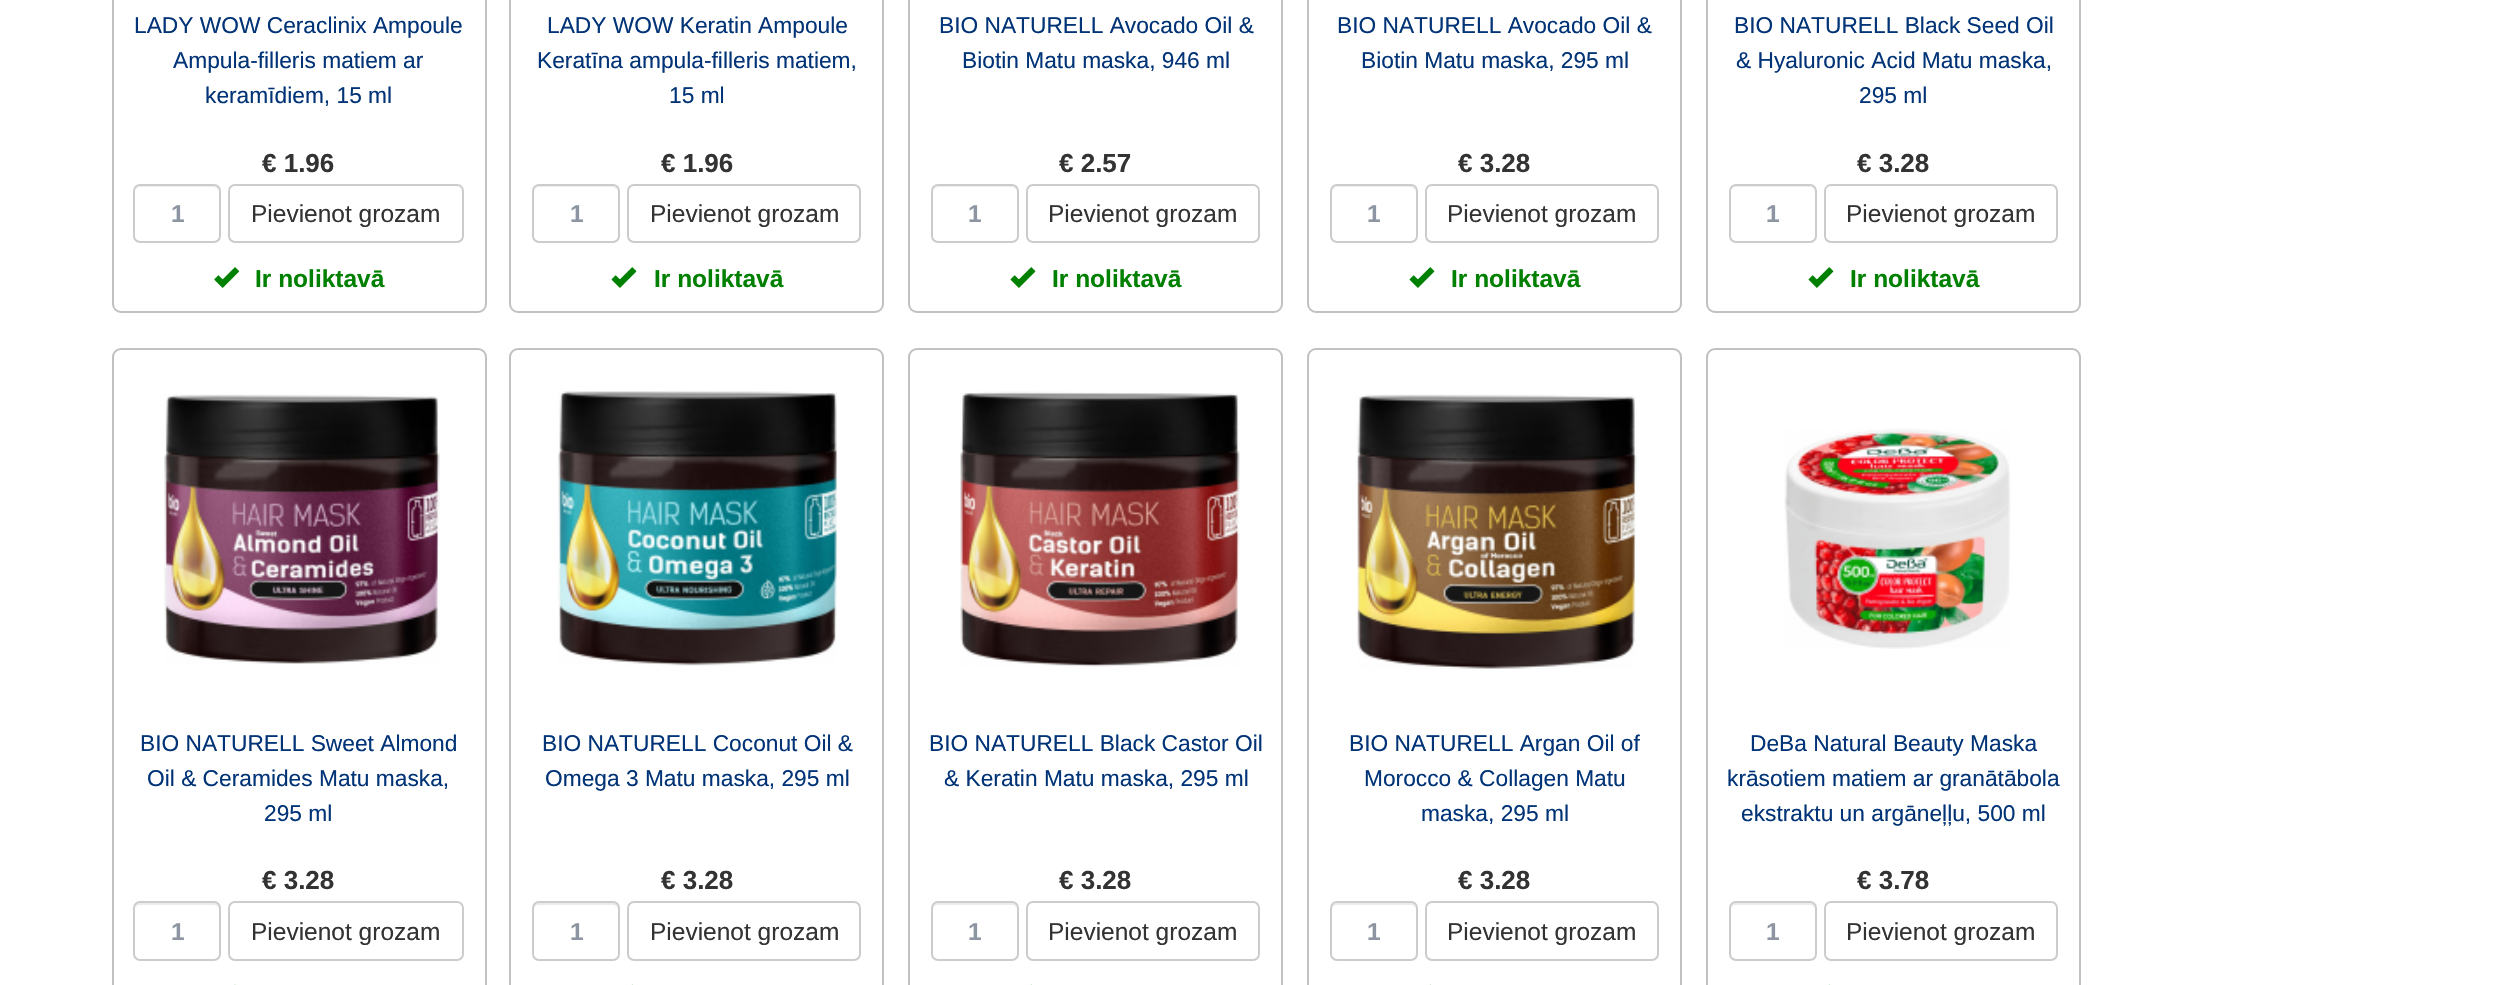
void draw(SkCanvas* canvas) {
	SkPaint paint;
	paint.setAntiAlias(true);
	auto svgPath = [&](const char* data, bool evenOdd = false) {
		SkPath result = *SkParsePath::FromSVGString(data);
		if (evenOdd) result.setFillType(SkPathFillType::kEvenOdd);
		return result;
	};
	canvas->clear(0xffffffff);
	paint.setStroke(true);
	paint.setStrokeWidth(2);
	paint.setColor(0xffc1c1c1);
	canvas->drawRoundRect(SkRect::MakeXYWH(113, -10, 373, 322), 8, 8, paint);
	SkFont f1(fontMgr->matchFamilyStyle("Liberation Sans", SkFontStyle::Normal()), 22.75);
	f1.setSubpixel(true);
	paint.setStroke(false);
	paint.setColor(0xff013377);
	canvas->drawString("LADY WOW Ceraclinix Ampoule", 134, 33, f1, paint);
	canvas->drawString("Ampula-filleris matiem ar", 173, 68, f1, paint);
	canvas->drawString("keramīdiem, 15 ml", 205, 103, f1, paint);
	SkFont f2(fontMgr->matchFamilyStyle("Liberation Sans", SkFontStyle::Bold()), 26);
	f2.setSubpixel(true);
	paint.setColor(0xff333333);
	canvas->drawString("€ 1.96", 262, 172, f2, paint);
	paint.setColor(0xffececec);
	canvas->drawPath(svgPath("M140 187H214C216 187 219 190 219 192C219 183 207 186 202 186H152C147 186 135 183 135 192C135 190 137 187 140 187Z"), paint);
	paint.setStroke(true);
	paint.setColor(0xffcccccc);
	canvas->drawRoundRect(SkRect::MakeXYWH(134, 185, 86, 57), 6, 6, paint);
	SkFont f3(fontMgr->matchFamilyStyle("Liberation Sans", SkFontStyle::Bold()), 24.5);
	f3.setSubpixel(true);
	paint.setStroke(false);
	paint.setColor(0xff8c95a1);
	canvas->drawString("1", 171, 222, f3, paint);
	paint.setStroke(true);
	paint.setColor(0xffcccccc);
	canvas->drawRoundRect(SkRect::MakeXYWH(229, 185, 234, 57), 6, 6, paint);
	SkFont f4(fontMgr->matchFamilyStyle("Liberation Sans", SkFontStyle::Normal()), 24.5);
	f4.setSubpixel(true);
	paint.setStroke(false);
	paint.setColor(0xff333333);
	canvas->drawString("Pievienot grozam", 251, 222, f4, paint);
	canvas->drawImageRect(SkImages::DeferredFromEncodedData(SkData::MakeFromFileName("img1.png")), SkRect::MakeXYWH(214, 267, 26, 21), SkSamplingOptions());
	paint.setColor(0xff008000);
	canvas->drawString("Ir noliktavā", 255, 287, f3, paint);
	paint.setStroke(true);
	paint.setColor(0xffc1c1c1);
	canvas->drawRoundRect(SkRect::MakeXYWH(510, -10, 373, 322), 8, 8, paint);
	paint.setStroke(false);
	paint.setColor(0xff013377);
	canvas->drawString("LADY WOW Keratin Ampoule", 547, 33, f1, paint);
	canvas->drawString("Keratīna ampula-filleris matiem,", 537, 68, f1, paint);
	canvas->drawString("15 ml", 669, 103, f1, paint);
	paint.setColor(0xff333333);
	canvas->drawString("€ 1.96", 661, 172, f2, paint);
	paint.setColor(0xffececec);
	canvas->drawPath(svgPath("M539 187H612C615 187 618 190 618 192C618 183 606 186 601 186H551C546 186 534 183 534 192C534 190 536 187 539 187Z"), paint);
	paint.setStroke(true);
	paint.setColor(0xffcccccc);
	canvas->drawRoundRect(SkRect::MakeXYWH(533, 185, 86, 57), 6, 6, paint);
	paint.setStroke(false);
	paint.setColor(0xff8c95a1);
	canvas->drawString("1", 570, 222, f3, paint);
	paint.setStroke(true);
	paint.setColor(0xffcccccc);
	canvas->drawRoundRect(SkRect::MakeXYWH(628, 185, 232, 57), 6, 6, paint);
	paint.setStroke(false);
	paint.setColor(0xff333333);
	canvas->drawString("Pievienot grozam", 650, 222, f4, paint);
	canvas->drawImageRect(SkImages::DeferredFromEncodedData(SkData::MakeFromFileName("img2.png")), SkRect::MakeXYWH(611, 267, 26, 21), SkSamplingOptions());
	paint.setColor(0xff008000);
	canvas->drawString("Ir noliktavā", 654, 287, f3, paint);
	paint.setStroke(true);
	paint.setColor(0xffc1c1c1);
	canvas->drawRoundRect(SkRect::MakeXYWH(909, -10, 373, 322), 8, 8, paint);
	paint.setStroke(false);
	paint.setColor(0xff013377);
	canvas->drawString("BIO NATURELL Avocado Oil &", 939, 33, f1, paint);
	canvas->drawString("Biotin Matu maska, 946 ml", 962, 68, f1, paint);
	paint.setColor(0xff333333);
	canvas->drawString("€ 2.57", 1059, 172, f2, paint);
	paint.setColor(0xffececec);
	canvas->drawPath(svgPath("M938 187H1012C1014 187 1017 190 1017 192C1017 183 1005 186 1000 186H950C945 186 933 183 933 192C933 190 935 187 938 187Z"), paint);
	paint.setStroke(true);
	paint.setColor(0xffcccccc);
	canvas->drawRoundRect(SkRect::MakeXYWH(932, 185, 86, 57), 6, 6, paint);
	paint.setStroke(false);
	paint.setColor(0xff8c95a1);
	canvas->drawString("1", 968, 222, f3, paint);
	paint.setStroke(true);
	paint.setColor(0xffcccccc);
	canvas->drawRoundRect(SkRect::MakeXYWH(1027, 185, 232, 57), 6, 6, paint);
	paint.setStroke(false);
	paint.setColor(0xff333333);
	canvas->drawString("Pievienot grozam", 1048, 222, f4, paint);
	canvas->drawImageRect(SkImages::DeferredFromEncodedData(SkData::MakeFromFileName("img2.png")), SkRect::MakeXYWH(1010, 267, 26, 21), SkSamplingOptions());
	paint.setColor(0xff008000);
	canvas->drawString("Ir noliktavā", 1052, 287, f3, paint);
	paint.setStroke(true);
	paint.setColor(0xffc1c1c1);
	canvas->drawRoundRect(SkRect::MakeXYWH(1308, -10, 373, 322), 8, 8, paint);
	paint.setStroke(false);
	paint.setColor(0xff013377);
	canvas->drawString("BIO NATURELL Avocado Oil &", 1337, 33, f1, paint);
	canvas->drawString("Biotin Matu maska, 295 ml", 1361, 68, f1, paint);
	paint.setColor(0xff333333);
	canvas->drawString("€ 3.28", 1458, 172, f2, paint);
	paint.setColor(0xffececec);
	canvas->drawPath(svgPath("M1337 187H1410C1413 187 1416 190 1416 192C1416 183 1404 186 1399 186H1349C1344 186 1332 183 1332 192C1332 190 1334 187 1337 187Z"), paint);
	paint.setStroke(true);
	paint.setColor(0xffcccccc);
	canvas->drawRoundRect(SkRect::MakeXYWH(1331, 185, 86, 57), 6, 6, paint);
	paint.setStroke(false);
	paint.setColor(0xff8c95a1);
	canvas->drawString("1", 1367, 222, f3, paint);
	paint.setStroke(true);
	paint.setColor(0xffcccccc);
	canvas->drawRoundRect(SkRect::MakeXYWH(1426, 185, 232, 57), 6, 6, paint);
	paint.setStroke(false);
	paint.setColor(0xff333333);
	canvas->drawString("Pievienot grozam", 1447, 222, f4, paint);
	canvas->drawImageRect(SkImages::DeferredFromEncodedData(SkData::MakeFromFileName("img2.png")), SkRect::MakeXYWH(1409, 267, 26, 21), SkSamplingOptions());
	paint.setColor(0xff008000);
	canvas->drawString("Ir noliktavā", 1451, 287, f3, paint);
	paint.setStroke(true);
	paint.setColor(0xffc1c1c1);
	canvas->drawRoundRect(SkRect::MakeXYWH(1707, -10, 373, 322), 8, 8, paint);
	paint.setStroke(false);
	paint.setColor(0xff013377);
	canvas->drawString("BIO NATURELL Black Seed Oil", 1734, 33, f1, paint);
	canvas->drawString("& Hyaluronic Acid Matu maska,", 1736, 68, f1, paint);
	canvas->drawString("295 ml", 1859, 103, f1, paint);
	paint.setColor(0xff333333);
	canvas->drawString("€ 3.28", 1857, 172, f2, paint);
	paint.setColor(0xffececec);
	canvas->drawPath(svgPath("M1736 187H1810C1812 187 1815 190 1815 192C1815 183 1803 186 1798 186H1748C1743 186 1731 183 1731 192C1731 190 1733 187 1736 187Z"), paint);
	paint.setStroke(true);
	paint.setColor(0xffcccccc);
	canvas->drawRoundRect(SkRect::MakeXYWH(1730, 185, 86, 57), 6, 6, paint);
	paint.setStroke(false);
	paint.setColor(0xff8c95a1);
	canvas->drawString("1", 1766, 222, f3, paint);
	paint.setStroke(true);
	paint.setColor(0xffcccccc);
	canvas->drawRoundRect(SkRect::MakeXYWH(1825, 185, 232, 57), 6, 6, paint);
	paint.setStroke(false);
	paint.setColor(0xff333333);
	canvas->drawString("Pievienot grozam", 1846, 222, f4, paint);
	canvas->drawImageRect(SkImages::DeferredFromEncodedData(SkData::MakeFromFileName("img2.png")), SkRect::MakeXYWH(1808, 267, 26, 21), SkSamplingOptions());
	paint.setColor(0xff008000);
	canvas->drawString("Ir noliktavā", 1850, 287, f3, paint);
	paint.setStroke(true);
	paint.setColor(0xffc1c1c1);
	canvas->drawRoundRect(SkRect::MakeXYWH(113, 349, 373, 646), 8, 8, paint);
	canvas->drawImageRect(SkImages::DeferredFromEncodedData(SkData::MakeFromFileName("img3.png")), SkRect::MakeXYWH(164, 394, 276, 270), SkSamplingOptions());
	paint.setStroke(false);
	paint.setColor(0xff013377);
	canvas->drawString("BIO NATURELL Sweet Almond", 140, 751, f1, paint);
	canvas->drawString("Oil & Ceramides Matu maska,", 147, 786, f1, paint);
	canvas->drawString("295 ml", 264, 821, f1, paint);
	paint.setColor(0xff333333);
	canvas->drawString("€ 3.28", 262, 889, f2, paint);
	paint.setColor(0xffececec);
	canvas->drawPath(svgPath("M140 905H214C216 905 219 907 219 910C219 900 210 903 202 903H152C144 903 135 900 135 910C135 907 137 905 140 905Z"), paint);
	paint.setStroke(true);
	paint.setColor(0xffcccccc);
	canvas->drawRoundRect(SkRect::MakeXYWH(134, 902, 86, 58), 6, 6, paint);
	paint.setStroke(false);
	paint.setColor(0xff8c95a1);
	canvas->drawString("1", 171, 940, f3, paint);
	paint.setStroke(true);
	paint.setColor(0xffcccccc);
	canvas->drawRoundRect(SkRect::MakeXYWH(229, 902, 234, 58), 6, 6, paint);
	paint.setStroke(false);
	paint.setColor(0xff333333);
	canvas->drawString("Pievienot grozam", 251, 940, f4, paint);
	paint.setColor(0xffe8f4e8);
	canvas->drawRect(SkRect::MakeXYWH(234, 984, 2, 1), paint);
	paint.setStroke(true);
	paint.setColor(0xffc1c1c1);
	canvas->drawRoundRect(SkRect::MakeXYWH(510, 349, 373, 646), 8, 8, paint);
	canvas->drawImageRect(SkImages::DeferredFromEncodedData(SkData::MakeFromFileName("img4.png")), SkRect::MakeXYWH(557, 391, 280, 275), SkSamplingOptions());
	paint.setStroke(false);
	paint.setColor(0xff013377);
	canvas->drawString("BIO NATURELL Coconut Oil &", 542, 751, f1, paint);
	canvas->drawString("Omega 3 Matu maska, 295 ml", 545, 786, f1, paint);
	paint.setColor(0xff333333);
	canvas->drawString("€ 3.28", 661, 889, f2, paint);
	paint.setColor(0xffececec);
	canvas->drawPath(svgPath("M539 905H612C615 905 618 907 618 910C618 900 609 903 601 903H551C543 903 534 900 534 910C534 907 536 905 539 905Z"), paint);
	paint.setStroke(true);
	paint.setColor(0xffcccccc);
	canvas->drawRoundRect(SkRect::MakeXYWH(533, 902, 86, 58), 6, 6, paint);
	paint.setStroke(false);
	paint.setColor(0xff8c95a1);
	canvas->drawString("1", 570, 940, f3, paint);
	paint.setStroke(true);
	paint.setColor(0xffcccccc);
	canvas->drawRoundRect(SkRect::MakeXYWH(628, 902, 232, 58), 6, 6, paint);
	paint.setStroke(false);
	paint.setColor(0xff333333);
	canvas->drawString("Pievienot grozam", 650, 940, f4, paint);
	canvas->drawImageRect(SkImages::DeferredFromEncodedData(SkData::MakeFromFileName("img5.png")), SkRect::MakeXYWH(631, 984, 2, 1), SkSamplingOptions());
	paint.setStroke(true);
	paint.setColor(0xffc1c1c1);
	canvas->drawRoundRect(SkRect::MakeXYWH(909, 349, 373, 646), 8, 8, paint);
	canvas->drawImageRect(SkImages::DeferredFromEncodedData(SkData::MakeFromFileName("img6.png")), SkRect::MakeXYWH(960, 391, 280, 276), SkSamplingOptions());
	paint.setStroke(false);
	paint.setColor(0xff013377);
	canvas->drawString("BIO NATURELL Black Castor Oil", 929, 751, f1, paint);
	canvas->drawString("& Keratin Matu maska, 295 ml", 944, 786, f1, paint);
	paint.setColor(0xff333333);
	canvas->drawString("€ 3.28", 1059, 889, f2, paint);
	paint.setColor(0xffececec);
	canvas->drawPath(svgPath("M938 905H1012C1014 905 1017 907 1017 910C1017 900 1008 903 1000 903H950C942 903 933 900 933 910C933 907 935 905 938 905Z"), paint);
	paint.setStroke(true);
	paint.setColor(0xffcccccc);
	canvas->drawRoundRect(SkRect::MakeXYWH(932, 902, 86, 58), 6, 6, paint);
	paint.setStroke(false);
	paint.setColor(0xff8c95a1);
	canvas->drawString("1", 968, 940, f3, paint);
	paint.setStroke(true);
	paint.setColor(0xffcccccc);
	canvas->drawRoundRect(SkRect::MakeXYWH(1027, 902, 232, 58), 6, 6, paint);
	paint.setStroke(false);
	paint.setColor(0xff333333);
	canvas->drawString("Pievienot grozam", 1048, 940, f4, paint);
	canvas->drawImageRect(SkImages::DeferredFromEncodedData(SkData::MakeFromFileName("img5.png")), SkRect::MakeXYWH(1030, 984, 2, 1), SkSamplingOptions());
	paint.setStroke(true);
	paint.setColor(0xffc1c1c1);
	canvas->drawRoundRect(SkRect::MakeXYWH(1308, 349, 373, 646), 8, 8, paint);
	canvas->drawImageRect(SkImages::DeferredFromEncodedData(SkData::MakeFromFileName("img7.png")), SkRect::MakeXYWH(1356, 394, 281, 275), SkSamplingOptions());
	paint.setStroke(false);
	paint.setColor(0xff013377);
	canvas->drawString("BIO NATURELL Argan Oil of", 1349, 751, f1, paint);
	canvas->drawString("Morocco & Collagen Matu", 1364, 786, f1, paint);
	canvas->drawString("maska, 295 ml", 1421, 821, f1, paint);
	paint.setColor(0xff333333);
	canvas->drawString("€ 3.28", 1458, 889, f2, paint);
	paint.setColor(0xffececec);
	canvas->drawPath(svgPath("M1337 905H1410C1413 905 1416 907 1416 910C1416 900 1407 903 1399 903H1349C1341 903 1332 900 1332 910C1332 907 1334 905 1337 905Z"), paint);
	paint.setStroke(true);
	paint.setColor(0xffcccccc);
	canvas->drawRoundRect(SkRect::MakeXYWH(1331, 902, 86, 58), 6, 6, paint);
	paint.setStroke(false);
	paint.setColor(0xff8c95a1);
	canvas->drawString("1", 1367, 940, f3, paint);
	paint.setStroke(true);
	paint.setColor(0xffcccccc);
	canvas->drawRoundRect(SkRect::MakeXYWH(1426, 902, 232, 58), 6, 6, paint);
	paint.setStroke(false);
	paint.setColor(0xff333333);
	canvas->drawString("Pievienot grozam", 1447, 940, f4, paint);
	canvas->drawImageRect(SkImages::DeferredFromEncodedData(SkData::MakeFromFileName("img5.png")), SkRect::MakeXYWH(1429, 984, 2, 1), SkSamplingOptions());
	paint.setStroke(true);
	paint.setColor(0xffc1c1c1);
	canvas->drawRoundRect(SkRect::MakeXYWH(1707, 349, 373, 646), 8, 8, paint);
	canvas->drawImageRect(SkImages::DeferredFromEncodedData(SkData::MakeFromFileName("img8.png")), SkRect::MakeXYWH(1784, 428, 227, 221), SkSamplingOptions());
	paint.setStroke(false);
	paint.setColor(0xff013377);
	canvas->drawString("DeBa Natural Beauty Maska", 1750, 751, f1, paint);
	canvas->drawString("krāsotiem matiem ar granātābola", 1727, 786, f1, paint);
	canvas->drawString("ekstraktu un argāneļļu, 500 ml", 1741, 821, f1, paint);
	paint.setColor(0xff333333);
	canvas->drawString("€ 3.78", 1857, 889, f2, paint);
	paint.setColor(0xffececec);
	canvas->drawPath(svgPath("M1736 905H1810C1812 905 1815 907 1815 910C1815 900 1806 903 1798 903H1748C1740 903 1731 900 1731 910C1731 907 1733 905 1736 905Z"), paint);
	paint.setStroke(true);
	paint.setColor(0xffcccccc);
	canvas->drawRoundRect(SkRect::MakeXYWH(1730, 902, 86, 58), 6, 6, paint);
	paint.setStroke(false);
	paint.setColor(0xff8c95a1);
	canvas->drawString("1", 1766, 940, f3, paint);
	paint.setStroke(true);
	paint.setColor(0xffcccccc);
	canvas->drawRoundRect(SkRect::MakeXYWH(1825, 902, 232, 58), 6, 6, paint);
	paint.setStroke(false);
	paint.setColor(0xff333333);
	canvas->drawString("Pievienot grozam", 1846, 940, f4, paint);
	canvas->drawImageRect(SkImages::DeferredFromEncodedData(SkData::MakeFromFileName("img5.png")), SkRect::MakeXYWH(1828, 984, 2, 1), SkSamplingOptions());
}
